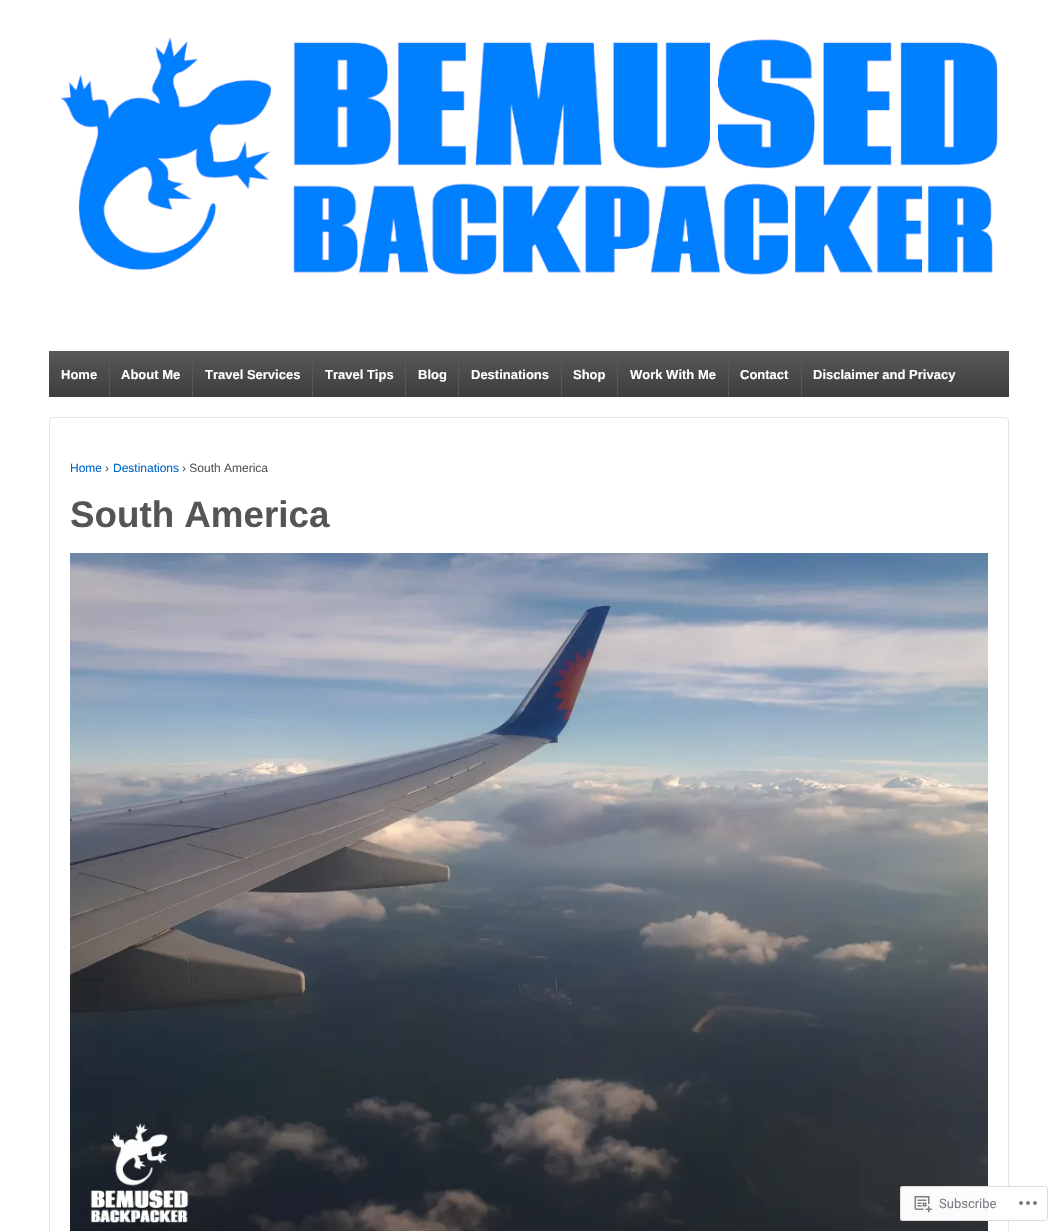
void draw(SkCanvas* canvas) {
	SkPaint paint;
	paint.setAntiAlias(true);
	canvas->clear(0xffffffff);
	canvas->drawImageRect(SkImages::DeferredFromEncodedData(SkData::MakeFromFileName("img1.png")), SkRect::MakeXYWH(60, 37, 938, 238), SkSamplingOptions());
	{
		const SkColor colors[] = {0xff585858, 0xff3d3d3d};
		const float stops[] = {0, 1};
		const SkPoint ends[] = {{529, 351}, {529, 397}};
		paint.setShader(SkGradientShader::MakeLinear(ends, colors, stops, 2, SkTileMode::kClamp));
		paint.setAlpha(255);
	}
	canvas->drawRect(SkRect::MakeXYWH(49, 351, 960, 46), paint);
	SkFont f1(fontMgr->matchFamilyStyle("Liberation Sans", SkFontStyle::Bold()), 13);
	f1.setSubpixel(true);
	paint.setShader(nullptr);
	paint.setColor(0xffffffff);
	canvas->drawString("Home", 61, 379, f1, paint);
	paint.setColor(0xff585858);
	canvas->drawRect(SkRect::MakeXYWH(109, 351, 1, 46), paint);
	paint.setColor(0xffffffff);
	canvas->drawString("About Me", 121, 379, f1, paint);
	paint.setColor(0xff585858);
	canvas->drawRect(SkRect::MakeXYWH(192, 351, 1, 46), paint);
	paint.setColor(0xffffffff);
	canvas->drawString("Travel Services", 205, 379, f1, paint);
	paint.setColor(0xff585858);
	canvas->drawRect(SkRect::MakeXYWH(312, 351, 1, 46), paint);
	paint.setColor(0xffffffff);
	canvas->drawString("Travel Tips", 325, 379, f1, paint);
	paint.setColor(0xff585858);
	canvas->drawRect(SkRect::MakeXYWH(405, 351, 1, 46), paint);
	paint.setColor(0xffffffff);
	canvas->drawString("Blog", 418, 379, f1, paint);
	paint.setColor(0xff585858);
	canvas->drawRect(SkRect::MakeXYWH(458, 351, 1, 46), paint);
	paint.setColor(0xffffffff);
	canvas->drawString("Destinations", 471, 379, f1, paint);
	paint.setColor(0xff585858);
	canvas->drawRect(SkRect::MakeXYWH(561, 351, 1, 46), paint);
	paint.setColor(0xffffffff);
	canvas->drawString("Shop", 573, 379, f1, paint);
	paint.setColor(0xff585858);
	canvas->drawRect(SkRect::MakeXYWH(617, 351, 1, 46), paint);
	paint.setColor(0xffffffff);
	canvas->drawString("Work With Me", 630, 379, f1, paint);
	paint.setColor(0xff585858);
	canvas->drawRect(SkRect::MakeXYWH(728, 351, 1, 46), paint);
	paint.setColor(0xffffffff);
	canvas->drawString("Contact", 740, 379, f1, paint);
	paint.setColor(0xff585858);
	canvas->drawRect(SkRect::MakeXYWH(801, 351, 1, 46), paint);
	paint.setColor(0xffffffff);
	canvas->drawString("Disclaimer and Privacy", 813, 379, f1, paint);
	paint.setStroke(true);
	paint.setStrokeWidth(1);
	paint.setColor(0xffe5e5e5);
	canvas->drawRoundRect(SkRect::MakeXYWH(49.5, 417.5, 959, 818), 3.5, 3.5, paint);
	SkFont f2(fontMgr->matchFamilyStyle("Liberation Sans", SkFontStyle::Normal()), 12);
	f2.setSubpixel(true);
	paint.setStroke(false);
	paint.setColor(0xff0066cc);
	canvas->drawString("Home", 70, 472, f2, paint);
	paint.setColor(0xff555555);
	canvas->drawString("›", 105, 472, f2, paint);
	paint.setColor(0xff0066cc);
	canvas->drawString("Destinations", 113, 472, f2, paint);
	paint.setColor(0xff555555);
	canvas->drawString("› South America", 182, 472, f2, paint);
	SkFont f3(fontMgr->matchFamilyStyle("Liberation Sans", SkFontStyle::Bold()), 36.75);
	f3.setSubpixel(true);
	canvas->drawString("South America", 70, 527, f3, paint);
	canvas->drawImageRect(SkImages::DeferredFromEncodedData(SkData::MakeFromFileName("img2.png")), SkRect::MakeXYWH(70, 553, 918, 678), SkSamplingOptions());
	paint.setColor(0xfaffffff);
	canvas->drawRoundRect(SkRect::MakeXYWH(900, 1186, 148, 35), 3, 3, paint);
	paint.setStroke(true);
	paint.setColor(0xfadcdcde);
	canvas->drawRoundRect(SkRect::MakeXYWH(900.5, 1186.5, 147, 34), 2.5, 2.5, paint);
	canvas->drawImageRect(SkImages::DeferredFromEncodedData(SkData::MakeFromFileName("img3.png")), SkRect::MakeXYWH(914, 1196, 18, 17), SkSamplingOptions());
	SkFont f4(fontMgr->matchFamilyStyle("Roboto", SkFontStyle::Normal()), 13);
	f4.setSubpixel(true);
	paint.setStroke(false);
	paint.setColor(0xff7b7f84);
	canvas->drawString("Subscribe", 939, 1208, f4, paint);
	canvas->drawImageRect(SkImages::DeferredFromEncodedData(SkData::MakeFromFileName("img4.png")), SkRect::MakeXYWH(1019, 1201, 18, 4), SkSamplingOptions());
}
